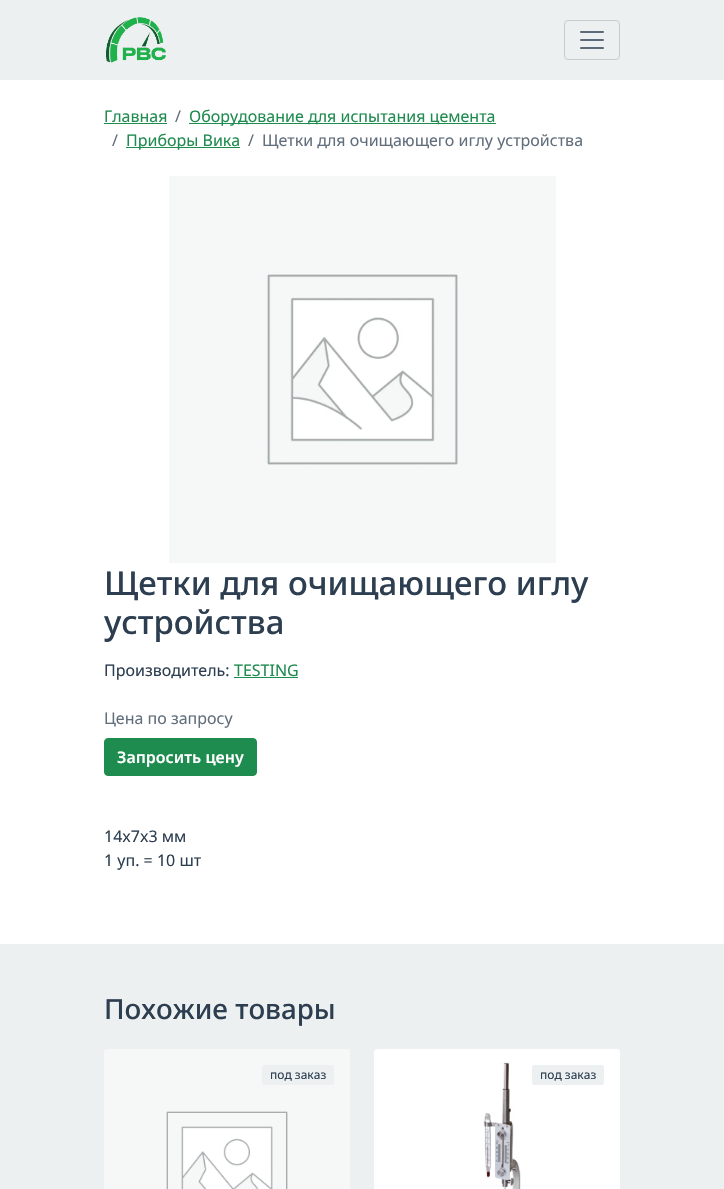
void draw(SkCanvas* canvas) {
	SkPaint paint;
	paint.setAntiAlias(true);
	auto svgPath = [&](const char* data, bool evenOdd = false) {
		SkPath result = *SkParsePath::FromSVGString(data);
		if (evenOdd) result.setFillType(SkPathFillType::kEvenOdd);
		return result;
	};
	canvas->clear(0xffecf0f1);
	canvas->drawImageRect(SkImages::DeferredFromEncodedData(SkData::MakeFromFileName("img1.png")), SkRect::MakeXYWH(106, 17, 60, 46), SkSamplingOptions());
	paint.setStroke(true);
	paint.setStrokeWidth(1);
	paint.setColor(0xffc9cccd);
	canvas->drawRoundRect(SkRect::MakeXYWH(564.5, 20.5, 55, 39), 3.5, 3.5, paint);
	canvas->drawImageRect(SkImages::DeferredFromEncodedData(SkData::MakeFromFileName("img2.png")), SkRect::MakeXYWH(580, 31, 24, 18), SkSamplingOptions());
	paint.setStroke(false);
	paint.setColor(0xffffffff);
	canvas->drawRect(SkRect::MakeXYWH(0, 80, 724, 864), paint);
	SkFont f1(fontMgr->matchFamilyStyle("Noto Sans", SkFontStyle::Normal()), 16);
	f1.setSubpixel(true);
	paint.setColor(0xff1e8b4f);
	canvas->drawString("Главная", 104, 122, f1, paint);
	canvas->drawRect(SkRect::MakeXYWH(104, 123, 63, 1), paint);
	paint.setColor(0xff616e7c);
	canvas->drawString("/", 175, 122, f1, paint);
	paint.setColor(0xff1e8b4f);
	canvas->drawRect(SkRect::MakeXYWH(189, 123, 307, 1), paint);
	canvas->drawString("Оборудование для испытания цемента", 189, 122, f1, paint);
	paint.setColor(0xff616e7c);
	canvas->drawString("/", 112, 146, f1, paint);
	paint.setColor(0xff1e8b4f);
	canvas->drawRect(SkRect::MakeXYWH(126, 147, 114, 1), paint);
	canvas->drawString("Приборы Вика", 126, 146, f1, paint);
	paint.setColor(0xff616e7c);
	canvas->drawString("/", 248, 146, f1, paint);
	canvas->drawString("Щетки для очищающего иглу устройства", 262, 146, f1, paint);
	canvas->drawImageRect(SkImages::DeferredFromEncodedData(SkData::MakeFromFileName("img3.png")), SkRect::MakeXYWH(169, 176, 387, 387), SkSamplingOptions());
	SkFont f2(fontMgr->matchFamilyStyle("Noto Sans", SkFontStyle(500, SkFontStyle::kNormal_Width, SkFontStyle::kUpright_Slant)), 32.9);
	f2.setSubpixel(true);
	paint.setColor(0xff2c3e50);
	canvas->drawString("Щетки для очищающего иглу", 104, 595, f2, paint);
	canvas->drawString("устройства", 104, 634, f2, paint);
	canvas->drawString("Производитель:", 104, 676, f1, paint);
	paint.setColor(0xff1e8b4f);
	canvas->drawString("TESTING", 234, 676, f1, paint);
	canvas->drawRect(SkRect::MakeXYWH(234, 677, 64, 1), paint);
	paint.setColor(0xff616e7c);
	canvas->drawString("Цена по запросу", 104, 724, f1, paint);
	paint.setColor(0xff1e8b4f);
	canvas->drawRoundRect(SkRect::MakeXYWH(104.5, 738.5, 152, 37), 3.5, 3.5, paint);
	paint.setStroke(true);
	canvas->drawRoundRect(SkRect::MakeXYWH(104.5, 738.5, 152, 37), 3.5, 3.5, paint);
	SkFont f3(fontMgr->matchFamilyStyle("Noto Sans", SkFontStyle(600, SkFontStyle::kNormal_Width, SkFontStyle::kUpright_Slant)), 16);
	f3.setSubpixel(true);
	paint.setStroke(false);
	paint.setColor(0xffffffff);
	canvas->drawString("Запросить цену", 117, 763, f3, paint);
	paint.setColor(0xff2c3e50);
	canvas->drawString("14x7x3 мм", 104, 842, f1, paint);
	canvas->drawString("1 уп. = 10 шт", 104, 866, f1, paint);
	SkFont f4(fontMgr->matchFamilyStyle("Noto Sans", SkFontStyle(500, SkFontStyle::kNormal_Width, SkFontStyle::kUpright_Slant)), 27.75);
	f4.setSubpixel(true);
	canvas->drawString("Похожие товары", 104, 1019, f4, paint);
	canvas->drawImageRect(SkImages::DeferredFromEncodedData(SkData::MakeFromFileName("img4.png")), SkRect::MakeXYWH(104, 1049, 246, 140), SkSamplingOptions());
	paint.setColor(0xffecf0f1);
	canvas->drawRoundRect(SkRect::MakeXYWH(262, 1065, 72, 20), 2.5, 2.5, paint);
	SkFont f5(fontMgr->matchFamilyStyle("Noto Sans", SkFontStyle::Normal()), 12);
	f5.setSubpixel(true);
	paint.setColor(0xff2c3e50);
	canvas->drawString("под заказ", 270, 1079, f5, paint);
	paint.setColor(0xffffffff);
	canvas->drawPath(svgPath("M377 1049H617C618.5 1049 620 1050.5 620 1052V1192H374V1052C374 1050.5 375.5 1049 377 1049Z"), paint);
	canvas->drawImageRect(SkImages::DeferredFromEncodedData(SkData::MakeFromFileName("img5.png")), SkRect::MakeXYWH(483, 1062, 38, 127), SkSamplingOptions());
	paint.setColor(0xffecf0f1);
	canvas->drawRoundRect(SkRect::MakeXYWH(532, 1065, 72, 20), 2.5, 2.5, paint);
	paint.setColor(0xff2c3e50);
	canvas->drawString("под заказ", 540, 1079, f5, paint);
}
